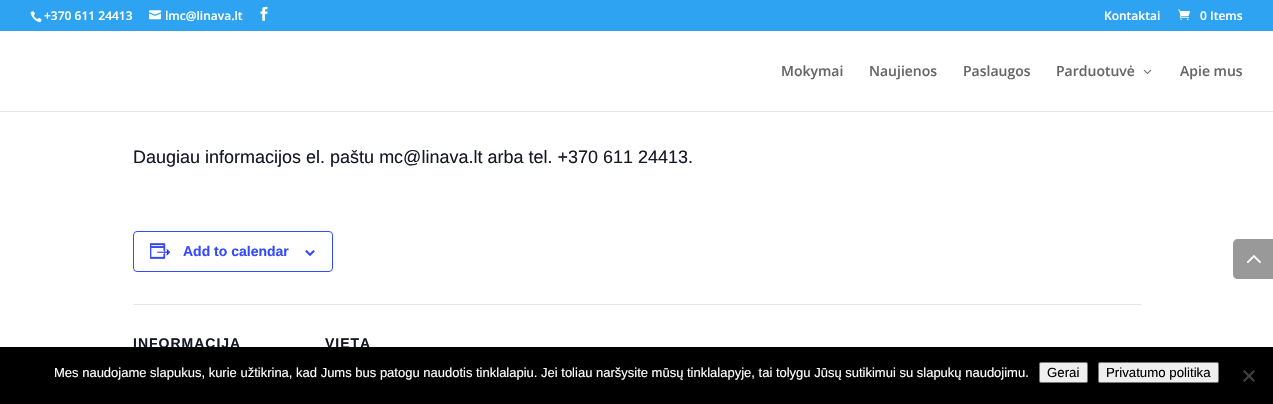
void draw(SkCanvas* canvas) {
	SkPaint paint;
	paint.setAntiAlias(true);
	auto spacedText = [&](const char* s, float x, float y, const SkFont& font, const SkPaint& ink, float letter, float word) {
		std::vector<SkGlyphID> glyphs(font.countText(s, strlen(s), SkTextEncoding::kUTF8));
		std::vector<float> xs(glyphs.size());
		font.textToGlyphs(s, strlen(s), SkTextEncoding::kUTF8, glyphs);
		font.getXPos(glyphs, xs, x);
		float extra = 0;
		for (size_t i = 0; i < glyphs.size(); i++) {
			xs[i] += extra;
			extra += letter + word * (glyphs[i] == font.unicharToGlyph(' '));
		}
		canvas->drawTextBlob(SkTextBlob::MakeFromPosHGlyphs(glyphs, xs, y, font), 0, 0, ink);
	};
	auto svgPath = [&](const char* data, bool evenOdd = false) {
		SkPath result = *SkParsePath::FromSVGString(data);
		if (evenOdd) result.setFillType(SkPathFillType::kEvenOdd);
		return result;
	};
	canvas->clear(0xffffffff);
	paint.setColor(0xff2ea3f2);
	canvas->drawRect(SkRect::MakeXYWH(0, 0, 1273, 31), paint);
	canvas->drawImageRect(SkImages::DeferredFromEncodedData(SkData::MakeFromFileName("img1.png")), SkRect::MakeXYWH(30, 11, 12, 12), SkSamplingOptions());
	SkFont f1(fontMgr->matchFamilyStyle("Open Sans", SkFontStyle(600, SkFontStyle::kNormal_Width, SkFontStyle::kUpright_Slant)), 12);
	f1.setSubpixel(true);
	paint.setColor(0xffffffff);
	canvas->drawString("+370 611 24413", 44, 20, f1, paint);
	canvas->drawImageRect(SkImages::DeferredFromEncodedData(SkData::MakeFromFileName("img2.png")), SkRect::MakeXYWH(149, 10, 12, 10), SkSamplingOptions());
	canvas->drawString("lmc@linava.lt", 165, 20, f1, paint);
	canvas->drawImageRect(SkImages::DeferredFromEncodedData(SkData::MakeFromFileName("img3.png")), SkRect::MakeXYWH(260, 6, 8, 15), SkSamplingOptions());
	canvas->drawString("Kontaktai", 1104, 20, f1, paint);
	canvas->drawImageRect(SkImages::DeferredFromEncodedData(SkData::MakeFromFileName("img4.png")), SkRect::MakeXYWH(1178, 9, 12, 11), SkSamplingOptions());
	canvas->drawString("0 Items", 1200, 20, f1, paint);
	paint.setColor(0xffe6e6e6);
	canvas->drawRect(SkRect::MakeXYWH(0, 111, 1273, 1), paint);
	SkFont f2(fontMgr->matchFamilyStyle("Open Sans", SkFontStyle(600, SkFontStyle::kNormal_Width, SkFontStyle::kUpright_Slant)), 14);
	f2.setSubpixel(true);
	paint.setColor(0xff666666);
	canvas->drawString("Mokymai", 781, 76, f2, paint);
	canvas->drawString("Naujienos", 869, 76, f2, paint);
	canvas->drawString("Paslaugos", 963, 76, f2, paint);
	canvas->drawString("Parduotuvė", 1056, 76, f2, paint);
	canvas->drawImageRect(SkImages::DeferredFromEncodedData(SkData::MakeFromFileName("img5.png")), SkRect::MakeXYWH(1143, 69, 9, 5), SkSamplingOptions());
	canvas->drawString("Apie mus", 1180, 76, f2, paint);
	SkFont f3(fontMgr->matchFamilyStyle("Liberation Sans", SkFontStyle::Normal()), 18);
	f3.setSubpixel(true);
	paint.setColor(0xff141827);
	canvas->drawString("Daugiau informacijos el. paštu mc@linava.lt arba tel. +370 611 24413.", 133, 163, f3, paint);
	paint.setStroke(true);
	paint.setStrokeWidth(1);
	paint.setColor(0xff334aff);
	canvas->drawRoundRect(SkRect::MakeXYWH(133.5, 231.5, 199, 40), 3.5, 3.5, paint);
	canvas->drawImageRect(SkImages::DeferredFromEncodedData(SkData::MakeFromFileName("img6.png")), SkRect::MakeXYWH(150, 243, 21, 16), SkSamplingOptions());
	SkFont f4(fontMgr->matchFamilyStyle("Liberation Sans", SkFontStyle::Bold()), 14);
	f4.setSubpixel(true);
	paint.setStroke(false);
	canvas->drawString("Add to calendar", 183, 256, f4, paint);
	canvas->drawImageRect(SkImages::DeferredFromEncodedData(SkData::MakeFromFileName("img7.png")), SkRect::MakeXYWH(305, 250, 10, 6), SkSamplingOptions());
	paint.setColor(0xffe4e4e4);
	canvas->drawRect(SkRect::MakeXYWH(133, 304, 1008, 1), paint);
	paint.setColor(0xff141827);
	spacedText("INFORMACIJA", 133, 348, f4, paint, 1, 0);
	spacedText("VIETA", 325, 348, f4, paint, 1, 0);
	paint.setColor(0xff999999);
	canvas->drawPath(svgPath("M1238 239H1273V279H1238C1235 279 1233 277 1233 274V244C1233 241 1235 239 1238 239Z"), paint);
	canvas->drawImageRect(SkImages::DeferredFromEncodedData(SkData::MakeFromFileName("img8.png")), SkRect::MakeXYWH(1247, 255, 14, 8), SkSamplingOptions());
	paint.setColor(0xff000000);
	canvas->drawRect(SkRect::MakeXYWH(0, 347, 1273, 57), paint);
	SkFont f5(fontMgr->matchFamilyStyle("Liberation Sans", SkFontStyle::Normal()), 13);
	f5.setSubpixel(true);
	paint.setColor(0xffffffff);
	canvas->drawString("Mes naudojame slapukus, kurie užtikrina, kad Jums bus patogu naudotis tinklalapiu. Jei toliau naršysite mūsų tinklalapyje, tai tolygu Jūsų sutikimui su slapukų naudojimu.", 54, 377, f5, paint);
	paint.setColor(0xffefefef);
	canvas->drawRoundRect(SkRect::MakeXYWH(1039.5, 362.5, 48, 20), 1.5, 1.5, paint);
	paint.setStroke(true);
	paint.setColor(0xff767676);
	canvas->drawRoundRect(SkRect::MakeXYWH(1039.5, 362.5, 48, 20), 1.5, 1.5, paint);
	SkFont f6(fontMgr->matchFamilyStyle("Liberation Sans", SkFontStyle::Normal()), 13.25);
	f6.setSubpixel(true);
	paint.setStroke(false);
	paint.setColor(0xff000000);
	canvas->drawString("Gerai", 1047, 377, f6, paint);
	paint.setColor(0xffefefef);
	canvas->drawRoundRect(SkRect::MakeXYWH(1098.5, 362.5, 120, 20), 1.5, 1.5, paint);
	paint.setStroke(true);
	paint.setColor(0xff767676);
	canvas->drawRoundRect(SkRect::MakeXYWH(1098.5, 362.5, 120, 20), 1.5, 1.5, paint);
	paint.setStroke(false);
	paint.setColor(0xff000000);
	canvas->drawString("Privatumo politika", 1106, 377, f6, paint);
	paint.setColor(0xff404040);
	canvas->drawPath(svgPath("M1253.5 370L1255 371.5L1244.5 382L1243 380.5Z"), paint);
	canvas->drawPath(svgPath("M1243 371.5L1244.5 370L1255 380.5L1253.5 382Z"), paint);
}
